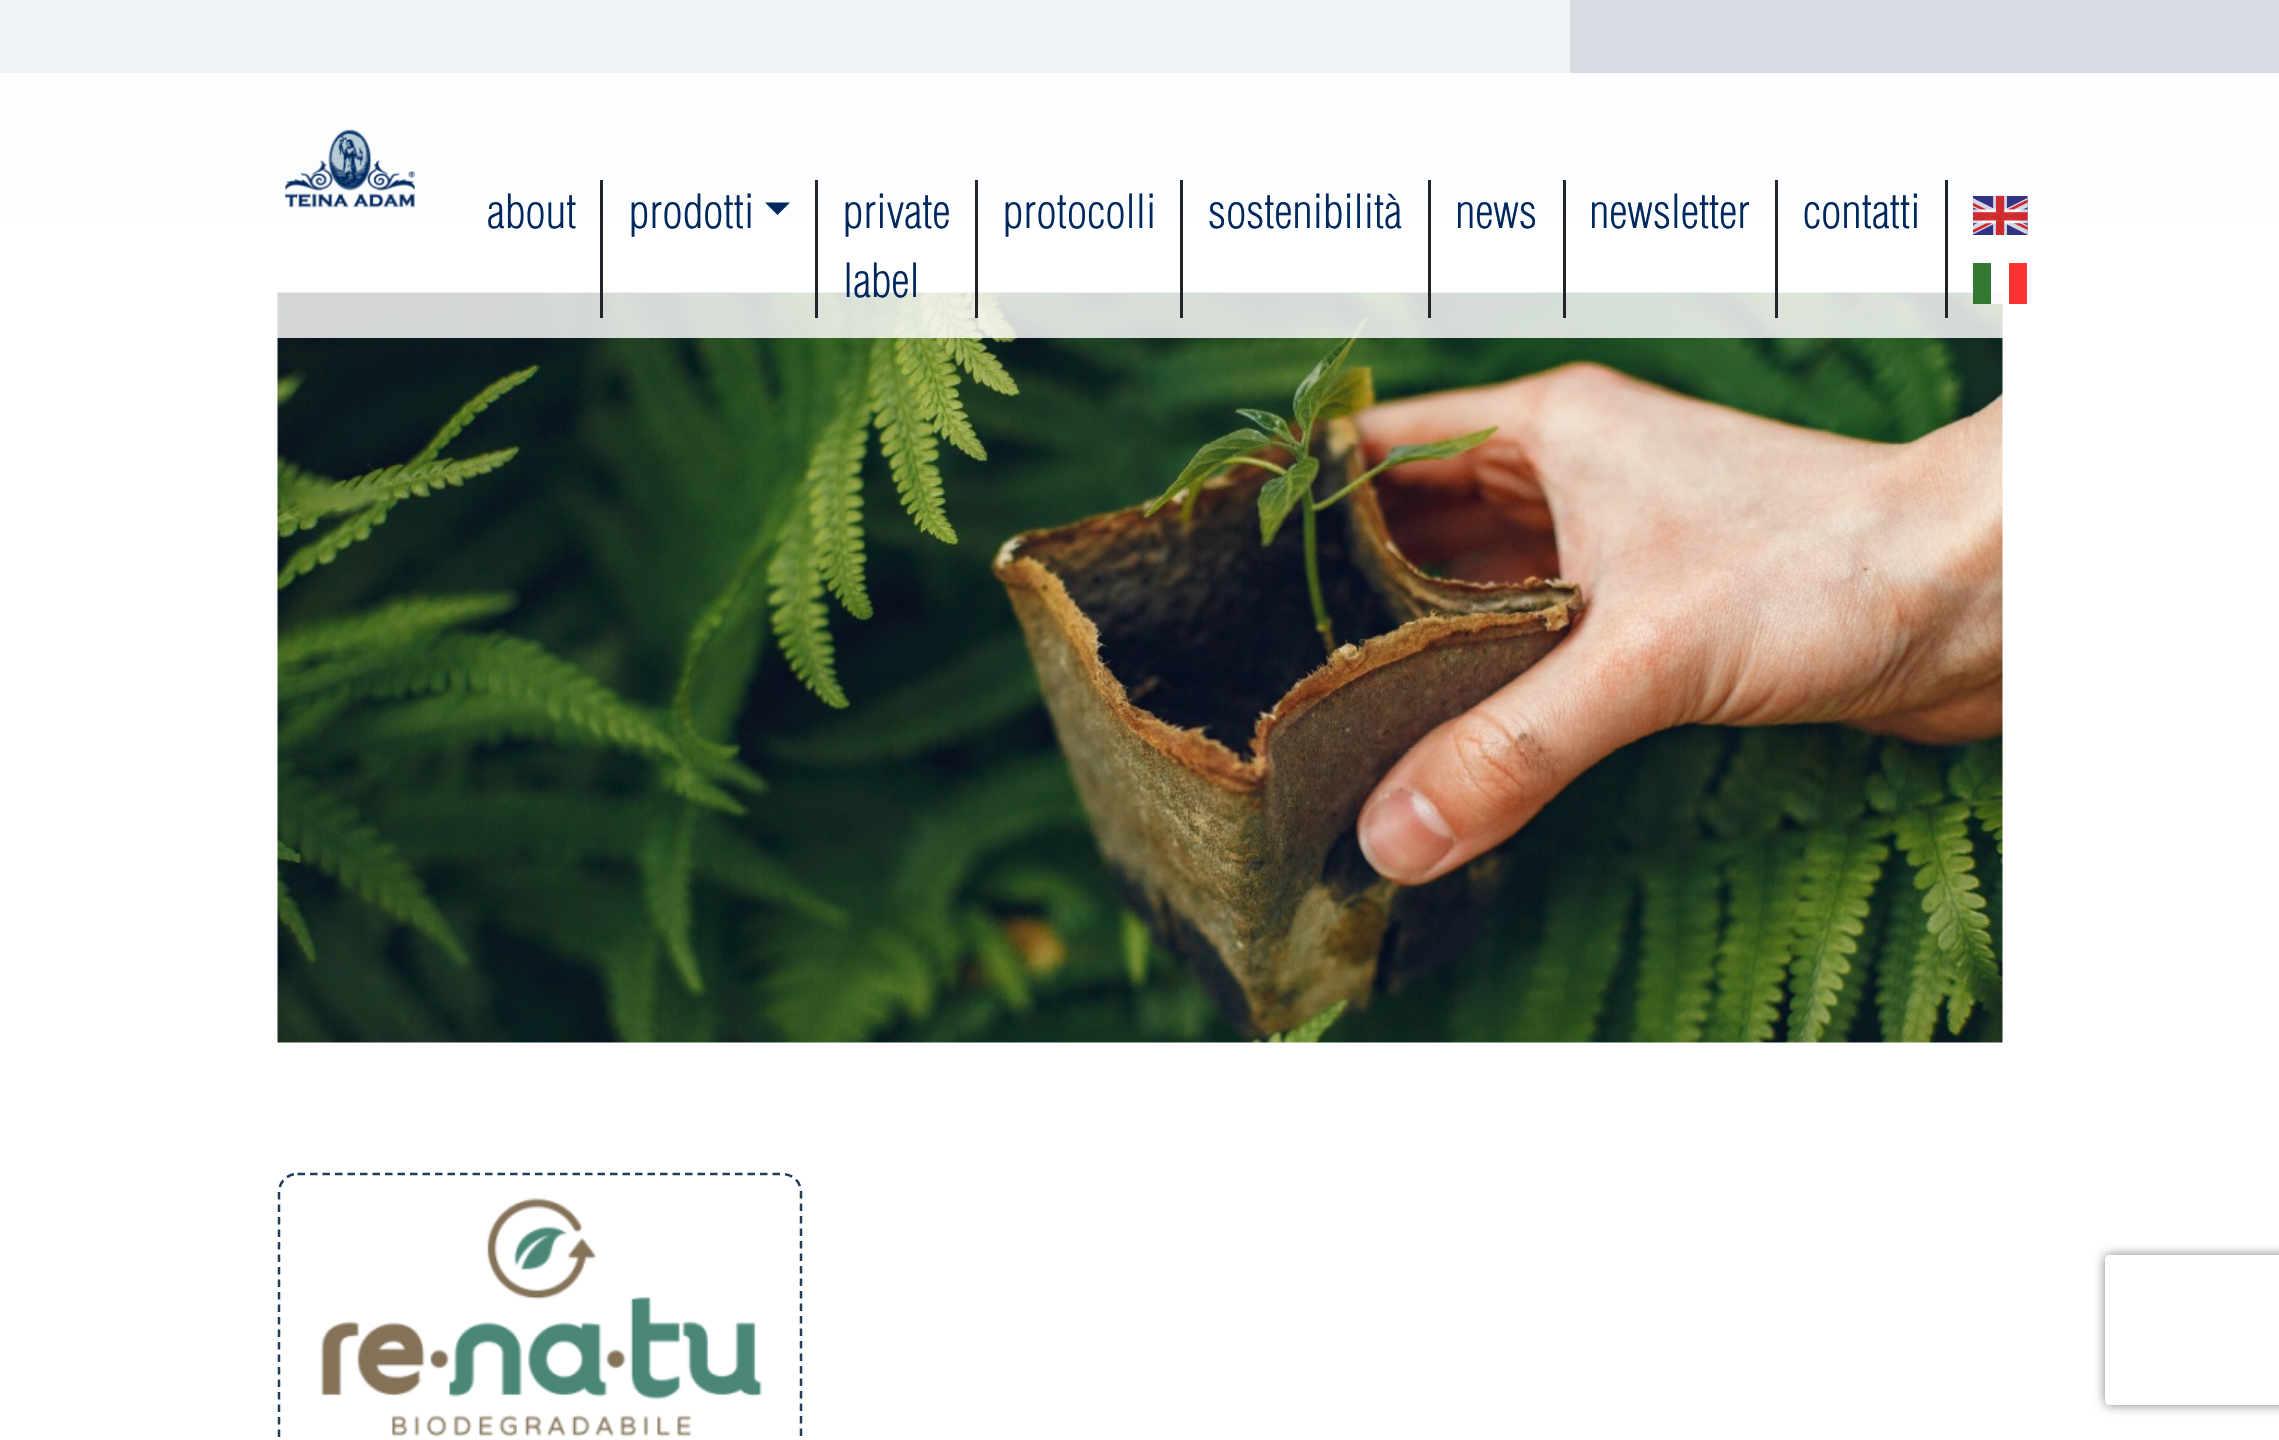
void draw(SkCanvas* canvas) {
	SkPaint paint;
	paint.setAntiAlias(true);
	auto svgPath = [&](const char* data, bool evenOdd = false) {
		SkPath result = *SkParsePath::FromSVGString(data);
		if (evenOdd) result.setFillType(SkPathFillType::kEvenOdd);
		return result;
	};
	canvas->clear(0xffffffff);
	paint.setColor(0xffedf1f6);
	canvas->drawRect(SkRect::MakeXYWH(0, 73, 2279, 145), paint);
	paint.setColor(0xffaec1cf);
	canvas->drawRect(SkRect::MakeXYWH(0, 0, 1570, 73), paint);
	paint.setColor(0xff223c5b);
	canvas->drawRect(SkRect::MakeXYWH(1570, 0, 709, 73), paint);
	canvas->drawImageRect(SkImages::DeferredFromEncodedData(SkData::MakeFromFileName("img3.png")), SkRect::MakeXYWH(277, 292, 1726, 751), SkSamplingOptions());
	paint.setColor(0xd1ffffff);
	canvas->drawRect(SkRect::MakeXYWH(0, 0, 2279, 338), paint);
	canvas->drawImageRect(SkImages::DeferredFromEncodedData(SkData::MakeFromFileName("img1.png")), SkRect::MakeXYWH(285, 129, 130, 79), SkSamplingOptions());
	paint.setColor(0xff212529);
	canvas->drawRect(SkRect::MakeXYWH(600, 180, 3, 138), paint);
	SkFont f1(fontMgr->matchFamilyStyle("Helvetica", SkFontStyle(300, SkFontStyle::kNormal_Width, SkFontStyle::kUpright_Slant)), 46);
	f1.setSubpixel(true);
	paint.setColor(0xff00285f);
	canvas->drawString("about", 487, 228, f1, paint);
	paint.setColor(0xff212529);
	canvas->drawRect(SkRect::MakeXYWH(815, 180, 3, 138), paint);
	paint.setColor(0xff00285f);
	canvas->drawString("prodotti", 629, 228, f1, paint);
	canvas->drawPath(svgPath("M765 202.5H790L777.5 215Z"), paint);
	paint.setColor(0xff212529);
	canvas->drawRect(SkRect::MakeXYWH(975, 180, 3, 138), paint);
	paint.setColor(0xff00285f);
	canvas->drawString("private", 843, 228, f1, paint);
	canvas->drawString("label", 843, 297, f1, paint);
	paint.setColor(0xff212529);
	canvas->drawRect(SkRect::MakeXYWH(1180, 180, 3, 138), paint);
	paint.setColor(0xff00285f);
	canvas->drawString("protocolli", 1003, 228, f1, paint);
	paint.setColor(0xff212529);
	canvas->drawRect(SkRect::MakeXYWH(1428, 180, 3, 138), paint);
	paint.setColor(0xff00285f);
	canvas->drawString("sostenibilità", 1208, 228, f1, paint);
	paint.setColor(0xff212529);
	canvas->drawRect(SkRect::MakeXYWH(1563, 180, 3, 138), paint);
	paint.setColor(0xff00285f);
	canvas->drawString("news", 1455, 228, f1, paint);
	paint.setColor(0xff212529);
	canvas->drawRect(SkRect::MakeXYWH(1775, 180, 3, 138), paint);
	paint.setColor(0xff00285f);
	canvas->drawString("newsletter", 1589, 228, f1, paint);
	paint.setColor(0xff212529);
	canvas->drawRect(SkRect::MakeXYWH(1945, 180, 3, 138), paint);
	paint.setColor(0xff00285f);
	canvas->drawString("contatti", 1803, 228, f1, paint);
	canvas->drawImageRect(SkImages::DeferredFromEncodedData(SkData::MakeFromFileName("img2.png")), SkRect::MakeXYWH(1973, 195, 55, 40), SkSamplingOptions());
	paint.setColor(0xccffffff);
	canvas->drawRect(SkRect::MakeXYWH(1973, 292, 30, 12), paint);
	paint.setColor(0xcc005700);
	canvas->drawRect(SkRect::MakeXYWH(1973, 263, 18, 41), paint);
	paint.setColor(0xfffd3333);
	canvas->drawRect(SkRect::MakeXYWH(2009, 263, 18, 41), paint);
	paint.setStroke(true);
	paint.setStrokeWidth(2.5);
	paint.setColor(0xff223c5b);
	paint.setPathEffect(SkDashPathEffect::Make({{7.5f, 5}}, 0));
	canvas->drawPath(svgPath("M297.5 1174H782.5C793 1174 801 1182 801 1192.5V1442.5C801 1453 793 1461 782.5 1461H297.5C287 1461 279 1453 279 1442.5V1192.5C279 1182 287 1174 297.5 1174Z"), paint);
	paint.setPathEffect(nullptr);
	canvas->drawImageRect(SkImages::DeferredFromEncodedData(SkData::MakeFromFileName("img4.png")), SkRect::MakeXYWH(320, 1198, 442, 239), SkSamplingOptions());
	canvas->save();
	canvas->clipPath(svgPath("M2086 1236H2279V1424H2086ZM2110 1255H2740C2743 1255 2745 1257 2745 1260V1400C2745 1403 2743 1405 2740 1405H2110C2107 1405 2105 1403 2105 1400V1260C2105 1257 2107 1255 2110 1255Z", true), true);
	paint.setStroke(false);
	paint.setColor(0xff808080);
	paint.setMaskFilter(SkMaskFilter::MakeBlur(kNormal_SkBlurStyle, 6));
	canvas->drawRoundRect(SkRect::MakeXYWH(2105, 1255, 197, 150), 5, 5, paint);
	paint.setMaskFilter(nullptr);
	canvas->restore();
}
